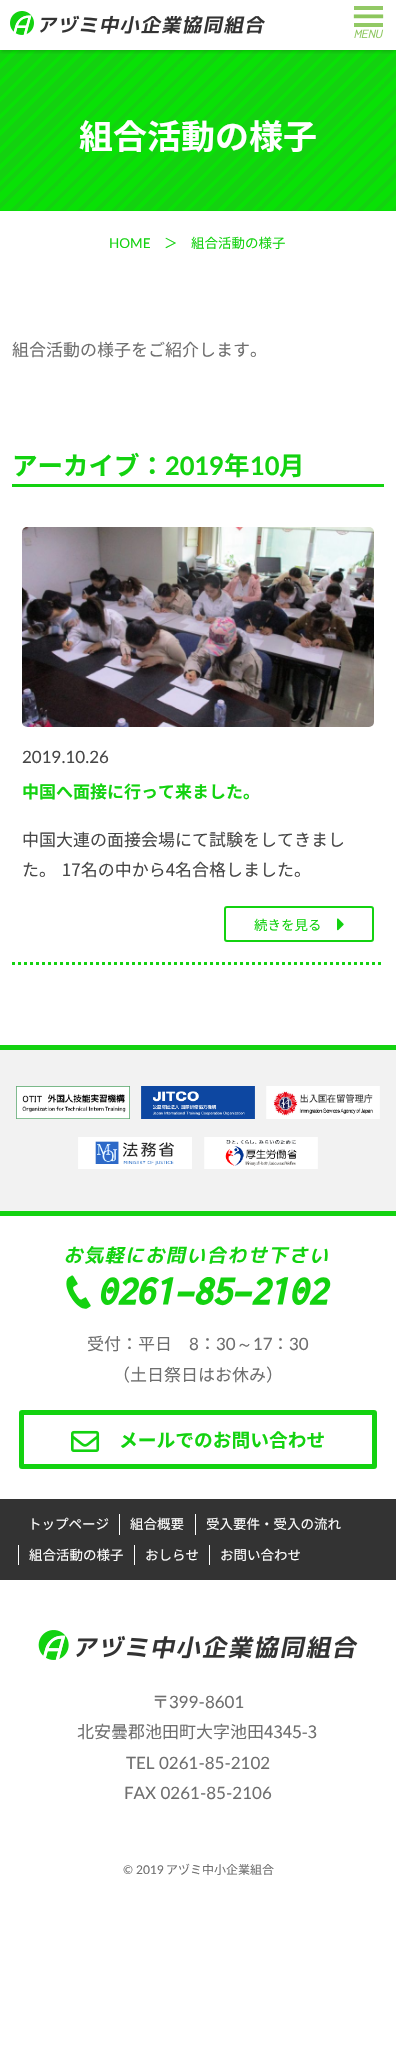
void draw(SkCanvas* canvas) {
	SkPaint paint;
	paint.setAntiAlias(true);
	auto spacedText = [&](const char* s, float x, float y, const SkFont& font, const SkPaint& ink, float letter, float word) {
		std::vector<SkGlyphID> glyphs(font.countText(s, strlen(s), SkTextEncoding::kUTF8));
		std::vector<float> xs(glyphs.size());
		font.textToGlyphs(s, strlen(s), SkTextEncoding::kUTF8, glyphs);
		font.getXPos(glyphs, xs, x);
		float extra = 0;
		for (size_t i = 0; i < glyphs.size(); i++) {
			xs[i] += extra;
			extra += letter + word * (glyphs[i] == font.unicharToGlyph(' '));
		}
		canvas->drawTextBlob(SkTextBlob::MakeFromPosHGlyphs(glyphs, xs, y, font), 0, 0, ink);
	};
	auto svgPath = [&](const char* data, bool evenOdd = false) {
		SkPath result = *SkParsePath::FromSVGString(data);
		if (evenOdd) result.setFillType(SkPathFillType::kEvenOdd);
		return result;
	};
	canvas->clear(0xffffffff);
	{
		const SkColor colors[] = {0xff13d210, 0xff13d210, 0xff09e106, 0xff09e106, 0xff13d210, 0xff13d210, 0xff09e106, 0xff09e106, 0xff13d210, 0xff13d210, 0xff09e106, 0xff09e106, 0xff13d210, 0xff13d210, 0xff09e106, 0xff09e106, 0xff13d210, 0xff13d210, 0xff09e106, 0xff09e106, 0xff13d210, 0xff13d210, 0xff09e106, 0xff09e106, 0xff13d210, 0xff13d210, 0xff09e106, 0xff09e106, 0xff13d210, 0xff13d210, 0xff09e106, 0xff09e106, 0xff13d210, 0xff13d210, 0xff09e106, 0xff09e106, 0xff13d210, 0xff13d210, 0xff09e106, 0xff09e106, 0xff13d210, 0xff13d210, 0xff09e106, 0xff09e106, 0xff13d210, 0xff13d210, 0xff09e106, 0xff09e106, 0xff13d210, 0xff13d210, 0xff09e106, 0xff09e106, 0xff13d210, 0xff13d210, 0xff09e106, 0xff09e106, 0xff13d210, 0xff13d210, 0xff09e106, 0xff09e106, 0xff13d210, 0xff13d210, 0xff09e106, 0xff09e106, 0xff13d210, 0xff13d210, 0xff09e106, 0xff09e106, 0xff13d210, 0xff13d210, 0xff09e106, 0xff09e106, 0xff13d210, 0xff13d210, 0xff09e106, 0xff09e106, 0xff13d210, 0xff13d210, 0xff09e106, 0xff09e106, 0xff13d210, 0xff13d210, 0xff09e106, 0xff09e106, 0xff13d210, 0xff13d210, 0xff09e106, 0xff09e106, 0xff13d210, 0xff13d210, 0xff09e106, 0xff09e106, 0xff13d210, 0xff13d210, 0xff09e106, 0xff09e106, 0xff13d210, 0xff13d210, 0xff09e106, 0xff09e106, 0xff13d210, 0xff13d210, 0xff09e106, 0xff09e106, 0xff13d210, 0xff13d210, 0xff09e106, 0xff09e106, 0xff13d210, 0xff13d210, 0xff09e106, 0xff09e106, 0xff13d210, 0xff13d210, 0xff09e106, 0xff09e106, 0xff13d210, 0xff13d210, 0xff09e106, 0xff09e106, 0xff13d210, 0xff13d210, 0xff09e106, 0xff09e106, 0xff13d210, 0xff13d210, 0xff09e106, 0xff09e106, 0xff13d210, 0xff13d210, 0xff09e106, 0xff09e106, 0xff13d210, 0xff13d210, 0xff09e106, 0xff09e106, 0xff13d210, 0xff13d210, 0xff09e106, 0xff09e106, 0xff13d210, 0xff13d210, 0xff09e106, 0xff09e106, 0xff13d210, 0xff13d210, 0xff09e106, 0xff09e106, 0xff13d210, 0xff13d210, 0xff09e106, 0xff09e106, 0xff13d210, 0xff13d210, 0xff09e106, 0xff09e106, 0xff13d210, 0xff13d210, 0xff09e106, 0xff09e106, 0xff13d210, 0xff13d210, 0xff09e106, 0xff09e106, 0xff13d210, 0xff13d210, 0xff09e106, 0xff09e106, 0xff13d210, 0xff13d210, 0xff09e106, 0xff09e106, 0xff13d210, 0xff13d210, 0xff09e106, 0xff09e106, 0xff13d210, 0xff13d210, 0xff09e106, 0xff09e106, 0xff13d210, 0xff13d210, 0xff09e106, 0xff09e106, 0xff13d210, 0xff13d210, 0xff09e106, 0xff09e106, 0xff13d210, 0xff13d210, 0xff09e106, 0xff09e106, 0xff13d210, 0xff13d210, 0xff09e106, 0xff09e106, 0xff13d210, 0xff13d210, 0xff09e106, 0xff09e106, 0xff13d210, 0xff13d210, 0xff09e106, 0xff09e106, 0xff13d210, 0xff13d210, 0xff09e106, 0xff09e106, 0xff13d210, 0xff13d210, 0xff09e106, 0xff09e106, 0xff13d210, 0xff13d210, 0xff09e106, 0xff09e106, 0xff13d210, 0xff13d210, 0xff09e106, 0xff09e106, 0xff13d210, 0xff13d210, 0xff09e106, 0xff09e106, 0xff13d210, 0xff13d210, 0xff09e106, 0xff09e106, 0xff13d210, 0xff13d210, 0xff09e106, 0xff09e106, 0xff13d210, 0xff13d210, 0xff09e106, 0xff09e106, 0xff13d210, 0xff13d210, 0xff09e106, 0xff09e106, 0xff13d210, 0xff13d210, 0xff09e106, 0xff09e106, 0xff13d210, 0xff13d210, 0xff09e106, 0xff09e106, 0xff13d210, 0xff13d210, 0xff09e106, 0xff09e106, 0xff13d210, 0xff13d210, 0xff09e106, 0xff09e106, 0xff13d210, 0xff13d210, 0xff09e106, 0xff09e106, 0xff13d210, 0xff13d210, 0xff09e106, 0xff09e106};
		const float stops[] = {0, 0.01, 0.01, 0.02, 0.02, 0.02, 0.02, 0.03, 0.03, 0.04, 0.04, 0.05, 0.05, 0.05, 0.05, 0.06, 0.06, 0.07, 0.07, 0.08, 0.08, 0.08, 0.08, 0.09, 0.09, 0.1, 0.1, 0.11, 0.11, 0.11, 0.11, 0.12, 0.12, 0.13, 0.13, 0.14, 0.14, 0.14, 0.14, 0.15, 0.15, 0.16, 0.16, 0.17, 0.17, 0.17, 0.17, 0.18, 0.18, 0.19, 0.19, 0.2, 0.2, 0.2, 0.2, 0.21, 0.21, 0.22, 0.22, 0.23, 0.23, 0.23, 0.23, 0.24, 0.24, 0.25, 0.25, 0.26, 0.26, 0.27, 0.27, 0.27, 0.27, 0.28, 0.28, 0.29, 0.29, 0.3, 0.3, 0.3, 0.3, 0.31, 0.31, 0.32, 0.32, 0.33, 0.33, 0.33, 0.33, 0.34, 0.34, 0.35, 0.35, 0.36, 0.36, 0.36, 0.36, 0.37, 0.37, 0.38, 0.38, 0.39, 0.39, 0.39, 0.39, 0.4, 0.4, 0.41, 0.41, 0.42, 0.42, 0.42, 0.42, 0.43, 0.43, 0.44, 0.44, 0.45, 0.45, 0.45, 0.45, 0.46, 0.46, 0.47, 0.47, 0.48, 0.48, 0.48, 0.48, 0.49, 0.49, 0.5, 0.5, 0.51, 0.51, 0.52, 0.52, 0.52, 0.52, 0.53, 0.53, 0.54, 0.54, 0.55, 0.55, 0.55, 0.55, 0.56, 0.56, 0.57, 0.57, 0.58, 0.58, 0.58, 0.58, 0.59, 0.59, 0.6, 0.6, 0.61, 0.61, 0.61, 0.61, 0.62, 0.62, 0.63, 0.63, 0.64, 0.64, 0.64, 0.64, 0.65, 0.65, 0.66, 0.66, 0.67, 0.67, 0.67, 0.67, 0.68, 0.68, 0.69, 0.69, 0.7, 0.7, 0.7, 0.7, 0.71, 0.71, 0.72, 0.72, 0.73, 0.73, 0.73, 0.73, 0.74, 0.74, 0.75, 0.75, 0.76, 0.76, 0.77, 0.77, 0.77, 0.77, 0.78, 0.78, 0.79, 0.79, 0.8, 0.8, 0.8, 0.8, 0.81, 0.81, 0.82, 0.82, 0.83, 0.83, 0.83, 0.83, 0.84, 0.84, 0.85, 0.85, 0.86, 0.86, 0.86, 0.86, 0.87, 0.87, 0.88, 0.88, 0.89, 0.89, 0.89, 0.89, 0.9, 0.9, 0.91, 0.91, 0.92, 0.92, 0.92, 0.92, 0.93, 0.93, 0.94, 0.94, 0.95, 0.95, 0.95, 0.95, 0.96, 0.96, 0.97, 0.97, 0.98, 0.98, 0.98, 0.98, 0.99, 0.99, 1};
		const SkPoint ends[] = {{337, 270}, {57, -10}};
		paint.setShader(SkGradientShader::MakeLinear(ends, colors, stops, 264, SkTileMode::kClamp));
		paint.setAlpha(255);
	}
	canvas->drawRect(SkRect::MakeXYWH(0, 50, 396, 161), paint);
	canvas->save();
	canvas->clipRect(SkRect::MakeXYWH(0, 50, 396, 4));
	paint.setShader(nullptr);
	paint.setColor(0x4d000000);
	paint.setMaskFilter(SkMaskFilter::MakeBlur(kNormal_SkBlurStyle, 2.5));
	canvas->drawRect(SkRect::MakeXYWH(0, 0, 396, 50), paint);
	paint.setMaskFilter(nullptr);
	canvas->restore();
	canvas->drawImageRect(SkImages::DeferredFromEncodedData(SkData::MakeFromFileName("img1.png")), SkRect::MakeXYWH(10, 11, 255, 24), SkSamplingOptions());
	canvas->drawImageRect(SkImages::DeferredFromEncodedData(SkData::MakeFromFileName("img2.png")), SkRect::MakeXYWH(353, 6, 31, 33), SkSamplingOptions());
	SkFont f1(fontMgr->matchFamilyStyle("Noto Sans JP", SkFontStyle::Bold()), 34);
	f1.setSubpixel(true);
	paint.setColor(0xffffffff);
	canvas->drawString("組合活動の様子", 79, 149, f1, paint);
	SkFont f2(fontMgr->matchFamilyStyle("Lato", SkFontStyle::Normal()), 13.5);
	f2.setSubpixel(true);
	paint.setColor(0xff13d210);
	canvas->drawString("HOME", 109, 248, f2, paint);
	SkFont f3(fontMgr->matchFamilyStyle("Noto Sans JP", SkFontStyle::Normal()), 13.5);
	f3.setSubpixel(true);
	canvas->drawString("＞　組合活動の様子", 164, 248, f3, paint);
	SkFont f4(fontMgr->matchFamilyStyle("Noto Sans JP", SkFontStyle::Normal()), 17);
	f4.setSubpixel(true);
	paint.setColor(0xff6f6f6f);
	canvas->drawString("組合活動の様子をご紹介します。", 12, 356, f4, paint);
	paint.setColor(0xff13d210);
	canvas->drawRect(SkRect::MakeXYWH(12, 484, 372, 3), paint);
	SkFont f5(fontMgr->matchFamilyStyle("Noto Sans JP", SkFontStyle::Bold()), 25.5);
	f5.setSubpixel(true);
	canvas->drawString("アーカイブ：", 12, 475, f5, paint);
	SkFont f6(fontMgr->matchFamilyStyle("Lato", SkFontStyle::Bold()), 25.5);
	f6.setSubpixel(true);
	canvas->drawString("2019", 165, 475, f6, paint);
	canvas->drawString("年", 224, 475, f5, paint);
	canvas->drawString("10", 250, 475, f6, paint);
	canvas->drawString("月", 279, 475, f5, paint);
	paint.setStroke(true);
	paint.setStrokeWidth(3);
	paint.setPathEffect(SkDashPathEffect::Make({{3, 3}}, 0));
	canvas->drawPath(svgPath("M12 963.5H384"), paint);
	paint.setPathEffect(nullptr);
	canvas->drawImageRect(SkImages::DeferredFromEncodedData(SkData::MakeFromFileName("img3.png")), SkRect::MakeXYWH(22, 527, 352, 200), SkSamplingOptions());
	SkFont f7(fontMgr->matchFamilyStyle("Lato", SkFontStyle::Normal()), 17);
	f7.setSubpixel(true);
	paint.setStroke(false);
	paint.setColor(0xff474747);
	canvas->drawString("2019.10.26", 22, 763, f7, paint);
	SkFont f8(fontMgr->matchFamilyStyle("Noto Sans JP", SkFontStyle::Bold()), 17);
	f8.setSubpixel(true);
	paint.setColor(0xff13d210);
	canvas->drawString("中国へ面接に行って来ました。", 22, 798, f8, paint);
	paint.setColor(0xff474747);
	canvas->drawString("中国大連の面接会場にて試験をしてきまし", 22, 846, f4, paint);
	spacedText("た。 17名の中から4名合格しました。", 22, 876, f4, paint, 0, 2);
	paint.setStroke(true);
	paint.setStrokeWidth(2);
	paint.setColor(0xff13d210);
	canvas->drawRoundRect(SkRect::MakeXYWH(225, 907, 148, 34), 2, 2, paint);
	paint.setStroke(false);
	canvas->drawString("続きを見る", 254, 930, f3, paint);
	canvas->drawImageRect(SkImages::DeferredFromEncodedData(SkData::MakeFromFileName("img4.png")), SkRect::MakeXYWH(337, 918, 7, 13), SkSamplingOptions());
	paint.setColor(0xfff2f2f2);
	canvas->drawRect(SkRect::MakeXYWH(0, 1050, 396, 161), paint);
	paint.setColor(0xff13d210);
	canvas->drawRect(SkRect::MakeXYWH(0, 1045, 396, 5), paint);
	canvas->drawRect(SkRect::MakeXYWH(0, 1211, 396, 5), paint);
	canvas->drawImageRect(SkImages::DeferredFromEncodedData(SkData::MakeFromFileName("img5.png")), SkRect::MakeXYWH(16, 1086, 114, 33), SkSamplingOptions());
	canvas->drawImageRect(SkImages::DeferredFromEncodedData(SkData::MakeFromFileName("img6.png")), SkRect::MakeXYWH(141, 1086, 114, 33), SkSamplingOptions());
	canvas->drawImageRect(SkImages::DeferredFromEncodedData(SkData::MakeFromFileName("img7.png")), SkRect::MakeXYWH(266, 1086, 114, 33), SkSamplingOptions());
	canvas->drawImageRect(SkImages::DeferredFromEncodedData(SkData::MakeFromFileName("img8.png")), SkRect::MakeXYWH(78, 1137, 114, 32), SkSamplingOptions());
	canvas->drawImageRect(SkImages::DeferredFromEncodedData(SkData::MakeFromFileName("img9.png")), SkRect::MakeXYWH(204, 1137, 114, 32), SkSamplingOptions());
	canvas->drawImageRect(SkImages::DeferredFromEncodedData(SkData::MakeFromFileName("img10.png")), SkRect::MakeXYWH(65, 1246, 266, 63), SkSamplingOptions());
	paint.setColor(0xff6f6f6f);
	canvas->drawString("受付：平日", 87, 1350, f4, paint);
	canvas->drawString("8", 189, 1350, f7, paint);
	canvas->drawString("：", 199, 1350, f4, paint);
	canvas->drawString("30", 216, 1350, f7, paint);
	SkFont f9(fontMgr->matchFamilyStyle("WenQuanYi Zen Hei", SkFontStyle(500, SkFontStyle::kNormal_Width, SkFontStyle::kUpright_Slant)), 17);
	f9.setSubpixel(true);
	canvas->drawString("～", 236, 1350, f9, paint);
	canvas->drawString("17", 253, 1350, f7, paint);
	canvas->drawString("：", 272, 1350, f4, paint);
	canvas->drawString("30", 289, 1350, f7, paint);
	canvas->drawString("（土日祭日はお休み）", 113, 1381, f4, paint);
	paint.setStroke(true);
	paint.setStrokeWidth(5);
	paint.setColor(0xff13d210);
	canvas->drawRoundRect(SkRect::MakeXYWH(21.5, 1412.5, 353, 54), 0.5, 0.5, paint);
	canvas->drawImageRect(SkImages::DeferredFromEncodedData(SkData::MakeFromFileName("img11.png")), SkRect::MakeXYWH(71, 1430, 29, 22), SkSamplingOptions());
	SkFont f10(fontMgr->matchFamilyStyle("Noto Sans JP", SkFontStyle::Bold()), 18.75);
	f10.setSubpixel(true);
	paint.setStroke(false);
	canvas->drawString("メールでのお問い合わせ", 119, 1447, f10, paint);
	paint.setColor(0xff333333);
	canvas->drawRect(SkRect::MakeXYWH(0, 1499, 396, 81), paint);
	paint.setColor(0xffffffff);
	canvas->drawString("トップページ", 28, 1529, f3, paint);
	canvas->drawRect(SkRect::MakeXYWH(119, 1514, 1, 21), paint);
	canvas->drawString("組合概要", 130, 1529, f3, paint);
	canvas->drawRect(SkRect::MakeXYWH(195, 1514, 1, 21), paint);
	canvas->drawString("受入要件・受入の流れ", 206, 1529, f3, paint);
	canvas->drawRect(SkRect::MakeXYWH(18, 1545, 1, 20), paint);
	canvas->drawString("組合活動の様子", 29, 1560, f3, paint);
	canvas->drawRect(SkRect::MakeXYWH(134, 1545, 1, 20), paint);
	canvas->drawString("おしらせ", 145, 1560, f3, paint);
	canvas->drawRect(SkRect::MakeXYWH(209, 1545, 1, 20), paint);
	canvas->drawString("お問い合わせ", 220, 1560, f3, paint);
	canvas->drawImageRect(SkImages::DeferredFromEncodedData(SkData::MakeFromFileName("img12.png")), SkRect::MakeXYWH(38, 1630, 320, 30), SkSamplingOptions());
	paint.setColor(0xff6f6f6f);
	canvas->drawString("〒", 152, 1708, f4, paint);
	canvas->drawString("399-8601", 169, 1708, f7, paint);
	canvas->drawString("北安曇郡池田町大字池田4345-3", 77, 1738, f4, paint);
	canvas->drawString("TEL 0261-85-2102", 126, 1769, f7, paint);
	canvas->drawString("FAX 0261-85-2106", 124, 1799, f7, paint);
	SkFont f11(fontMgr->matchFamilyStyle("Lato", SkFontStyle::Normal()), 12);
	f11.setSubpixel(true);
	canvas->drawString("© 2019", 123, 1874, f11, paint);
	SkFont f12(fontMgr->matchFamilyStyle("Noto Sans JP", SkFontStyle::Normal()), 12);
	f12.setSubpixel(true);
	canvas->drawString("アヅミ中小企業組合", 166, 1874, f12, paint);
}
